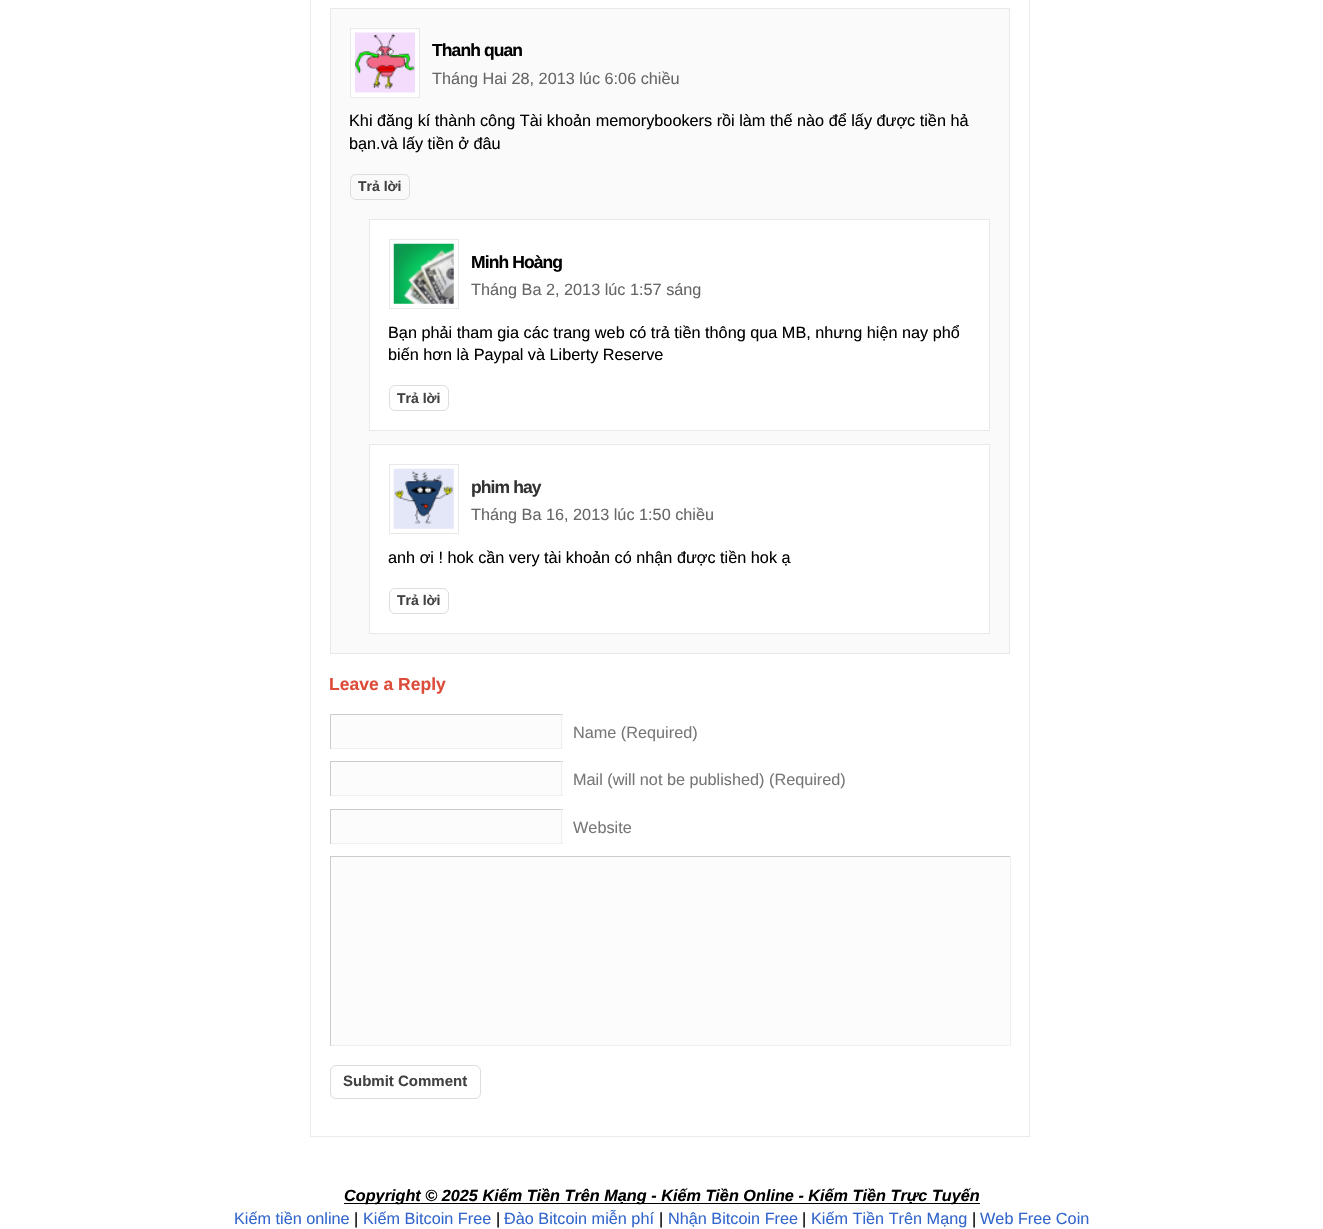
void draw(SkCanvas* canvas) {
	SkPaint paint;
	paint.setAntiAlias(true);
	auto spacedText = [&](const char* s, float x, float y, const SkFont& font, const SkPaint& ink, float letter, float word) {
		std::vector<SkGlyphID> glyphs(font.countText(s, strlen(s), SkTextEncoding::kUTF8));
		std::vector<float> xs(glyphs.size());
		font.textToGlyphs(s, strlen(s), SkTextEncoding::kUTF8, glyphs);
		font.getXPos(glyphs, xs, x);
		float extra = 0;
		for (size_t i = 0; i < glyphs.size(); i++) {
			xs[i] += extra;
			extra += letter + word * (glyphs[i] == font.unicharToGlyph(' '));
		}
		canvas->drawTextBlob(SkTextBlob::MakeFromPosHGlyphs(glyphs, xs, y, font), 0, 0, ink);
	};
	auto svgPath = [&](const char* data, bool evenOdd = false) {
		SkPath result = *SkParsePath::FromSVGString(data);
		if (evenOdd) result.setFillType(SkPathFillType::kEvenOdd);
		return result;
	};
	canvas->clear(0xffffffff);
	paint.setColor(0xffebebeb);
	canvas->drawPath(svgPath("M1030-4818V1138L1029 1136V-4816Z"), paint);
	canvas->drawRect(SkRect::MakeXYWH(310, 1136, 720, 1), paint);
	canvas->drawPath(svgPath("M310 1138V-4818L311-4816V1136Z"), paint);
	paint.setColor(0xfffafafa);
	canvas->drawRect(SkRect::MakeXYWH(330.5, 8.5, 679, 645), paint);
	paint.setStroke(true);
	paint.setStrokeWidth(1);
	paint.setColor(0xffe9e9e9);
	canvas->drawRect(SkRect::MakeXYWH(330.5, 8.5, 679, 645), paint);
	paint.setStroke(false);
	paint.setColor(0xffffffff);
	canvas->drawRect(SkRect::MakeXYWH(350.5, 28.5, 69, 69), paint);
	paint.setStroke(true);
	paint.setColor(0xffe9e9e9);
	canvas->drawRect(SkRect::MakeXYWH(350.5, 28.5, 69, 69), paint);
	canvas->drawImageRect(SkImages::DeferredFromEncodedData(SkData::MakeFromFileName("img1.png")), SkRect::MakeXYWH(355, 32, 60, 61), SkSamplingOptions());
	SkFont f1(fontMgr->matchFamilyStyle("Liberation Sans", SkFontStyle::Bold()), 17.5);
	f1.setSubpixel(true);
	paint.setStroke(false);
	paint.setColor(0xff000000);
	spacedText("Thanh quan", 432, 56, f1, paint, -0.9, 0);
	SkFont f2(fontMgr->matchFamilyStyle("Liberation Sans", SkFontStyle::Normal()), 16.25);
	f2.setSubpixel(true);
	paint.setColor(0xff666666);
	canvas->drawString("Tháng Hai 28, 2013 lúc 6:06 chiều", 432, 84, f2, paint);
	paint.setColor(0xff000000);
	canvas->drawString("Khi đăng kí thành công Tài khoản memorybookers rồi làm thế nào để lấy được tiền hả", 349, 126, f2, paint);
	canvas->drawString("bạn.và lấy tiền ở đâu", 349, 149, f2, paint);
	paint.setStroke(true);
	paint.setColor(0xffdddddd);
	canvas->drawRoundRect(SkRect::MakeXYWH(350.5, 174.5, 59, 25), 5.5, 5.5, paint);
	SkFont f3(fontMgr->matchFamilyStyle("Liberation Sans", SkFontStyle::Bold()), 14);
	f3.setSubpixel(true);
	paint.setStroke(false);
	paint.setColor(0xff424242);
	canvas->drawString("Trả lời", 358, 191, f3, paint);
	paint.setColor(0xffffffff);
	canvas->drawRect(SkRect::MakeXYWH(369.5, 219.5, 620, 211), paint);
	paint.setStroke(true);
	paint.setColor(0xffe9e9e9);
	canvas->drawRect(SkRect::MakeXYWH(369.5, 219.5, 620, 211), paint);
	canvas->drawRect(SkRect::MakeXYWH(389.5, 239.5, 69, 69), paint);
	canvas->drawImageRect(SkImages::DeferredFromEncodedData(SkData::MakeFromFileName("img2.png")), SkRect::MakeXYWH(393, 243, 61, 61), SkSamplingOptions());
	paint.setStroke(false);
	paint.setColor(0xff000000);
	spacedText("Minh Hoàng", 471, 268, f1, paint, -0.9, 0);
	paint.setColor(0xff666666);
	canvas->drawString("Tháng Ba 2, 2013 lúc 1:57 sáng", 471, 295, f2, paint);
	paint.setColor(0xff000000);
	canvas->drawString("Bạn phải tham gia các trang web có trả tiền thông qua MB, nhưng hiện nay phổ", 388, 338, f2, paint);
	canvas->drawString("biến hơn là Paypal và Liberty Reserve", 388, 360, f2, paint);
	paint.setStroke(true);
	paint.setColor(0xffdddddd);
	canvas->drawRoundRect(SkRect::MakeXYWH(389.5, 385.5, 59, 25), 5.5, 5.5, paint);
	paint.setStroke(false);
	paint.setColor(0xff424242);
	canvas->drawString("Trả lời", 397, 403, f3, paint);
	paint.setColor(0xffffffff);
	canvas->drawRect(SkRect::MakeXYWH(369.5, 444.5, 620, 189), paint);
	paint.setStroke(true);
	paint.setColor(0xffe9e9e9);
	canvas->drawRect(SkRect::MakeXYWH(369.5, 444.5, 620, 189), paint);
	canvas->drawRect(SkRect::MakeXYWH(389.5, 464.5, 69, 69), paint);
	canvas->drawImageRect(SkImages::DeferredFromEncodedData(SkData::MakeFromFileName("img3.png")), SkRect::MakeXYWH(393, 468, 61, 61), SkSamplingOptions());
	paint.setStroke(false);
	paint.setColor(0xff333333);
	spacedText("phim hay", 471, 493, f1, paint, -0.9, 0);
	paint.setColor(0xff666666);
	canvas->drawString("Tháng Ba 16, 2013 lúc 1:50 chiều", 471, 520, f2, paint);
	paint.setColor(0xff000000);
	canvas->drawString("anh ơi ! hok cần very tài khoản có nhận được tiền hok ạ", 388, 563, f2, paint);
	paint.setStroke(true);
	paint.setColor(0xffdddddd);
	canvas->drawRoundRect(SkRect::MakeXYWH(389.5, 588.5, 59, 25), 5.5, 5.5, paint);
	paint.setStroke(false);
	paint.setColor(0xff424242);
	canvas->drawString("Trả lời", 397, 605, f3, paint);
	paint.setColor(0xffdd4b39);
	canvas->drawString("Leave a Reply", 329, 690, f1, paint);
	paint.setColor(0xfffcfcfc);
	canvas->drawRect(SkRect::MakeXYWH(331, 715, 232, 33), paint);
	paint.setColor(0xffcccccc);
	canvas->drawRect(SkRect::MakeXYWH(330, 714, 233, 1), paint);
	paint.setColor(0xffefefef);
	canvas->drawRect(SkRect::MakeXYWH(561, 714, 1, 35), paint);
	canvas->drawRect(SkRect::MakeXYWH(330, 748, 233, 1), paint);
	paint.setColor(0xffcccccc);
	canvas->drawRect(SkRect::MakeXYWH(330, 714, 1, 35), paint);
	paint.setColor(0xff777777);
	canvas->drawString("Name (Required)", 573, 738, f2, paint);
	paint.setColor(0xfffcfcfc);
	canvas->drawRect(SkRect::MakeXYWH(331, 762, 232, 33), paint);
	paint.setColor(0xffcccccc);
	canvas->drawRect(SkRect::MakeXYWH(330, 761, 233, 1), paint);
	paint.setColor(0xffefefef);
	canvas->drawRect(SkRect::MakeXYWH(561, 761, 1, 35), paint);
	canvas->drawRect(SkRect::MakeXYWH(330, 795, 233, 1), paint);
	paint.setColor(0xffcccccc);
	canvas->drawRect(SkRect::MakeXYWH(330, 761, 1, 35), paint);
	paint.setColor(0xff777777);
	canvas->drawString("Mail (will not be published) (Required)", 573, 785, f2, paint);
	paint.setColor(0xfffcfcfc);
	canvas->drawRect(SkRect::MakeXYWH(331, 810, 232, 33), paint);
	paint.setColor(0xffcccccc);
	canvas->drawRect(SkRect::MakeXYWH(330, 809, 233, 1), paint);
	paint.setColor(0xffefefef);
	canvas->drawRect(SkRect::MakeXYWH(561, 809, 1, 35), paint);
	canvas->drawRect(SkRect::MakeXYWH(330, 843, 233, 1), paint);
	paint.setColor(0xffcccccc);
	canvas->drawRect(SkRect::MakeXYWH(330, 809, 1, 35), paint);
	paint.setColor(0xff777777);
	canvas->drawString("Website", 573, 833, f2, paint);
	paint.setColor(0xfffcfcfc);
	canvas->drawRect(SkRect::MakeXYWH(331, 857, 679, 188), paint);
	paint.setColor(0xffcccccc);
	canvas->drawRect(SkRect::MakeXYWH(330, 856, 681, 1), paint);
	paint.setColor(0xffefefef);
	canvas->drawRect(SkRect::MakeXYWH(1010, 856, 1, 190), paint);
	canvas->drawRect(SkRect::MakeXYWH(330, 1045, 681, 1), paint);
	paint.setColor(0xffcccccc);
	canvas->drawRect(SkRect::MakeXYWH(330, 856, 1, 190), paint);
	paint.setStroke(true);
	paint.setColor(0xffdddddd);
	canvas->drawRoundRect(SkRect::MakeXYWH(330.5, 1065.5, 150, 33), 5.5, 5.5, paint);
	SkFont f4(fontMgr->matchFamilyStyle("Liberation Sans", SkFontStyle::Bold()), 15);
	f4.setSubpixel(true);
	paint.setStroke(false);
	paint.setColor(0xff424242);
	canvas->drawString("Submit Comment", 343, 1086, f4, paint);
	paint.setColor(0xff000000);
	canvas->drawRect(SkRect::MakeXYWH(344, 1203, 636, 1), paint);
	SkFont f5(fontMgr->matchFamilyStyle("Liberation Sans", SkFontStyle::BoldItalic()), 16.25);
	f5.setSubpixel(true);
	canvas->drawString("Copyright © 2025 Kiếm Tiền Trên Mạng - Kiếm Tiền Online - Kiếm Tiền Trực Tuyến", 344, 1201, f5, paint);
	paint.setColor(0xff3366cc);
	canvas->drawString("Kiếm tiền online", 234, 1224, f2, paint);
	paint.setColor(0xff000000);
	canvas->drawString("|", 354, 1224, f2, paint);
	paint.setColor(0xff3366cc);
	canvas->drawString("Kiếm Bitcoin Free", 363, 1224, f2, paint);
	paint.setColor(0xff000000);
	canvas->drawString("|", 496, 1224, f2, paint);
	paint.setColor(0xff3366cc);
	canvas->drawString("Đào Bitcoin miễn phí", 504, 1224, f2, paint);
	paint.setColor(0xff000000);
	canvas->drawString("|", 659, 1224, f2, paint);
	paint.setColor(0xff3366cc);
	canvas->drawString("Nhận Bitcoin Free", 668, 1224, f2, paint);
	paint.setColor(0xff000000);
	canvas->drawString("|", 802, 1224, f2, paint);
	paint.setColor(0xff3366cc);
	canvas->drawString("Kiếm Tiền Trên Mạng", 811, 1224, f2, paint);
	paint.setColor(0xff000000);
	canvas->drawString("|", 972, 1224, f2, paint);
	paint.setColor(0xff3366cc);
	canvas->drawString("Web Free Coin", 980, 1224, f2, paint);
}
